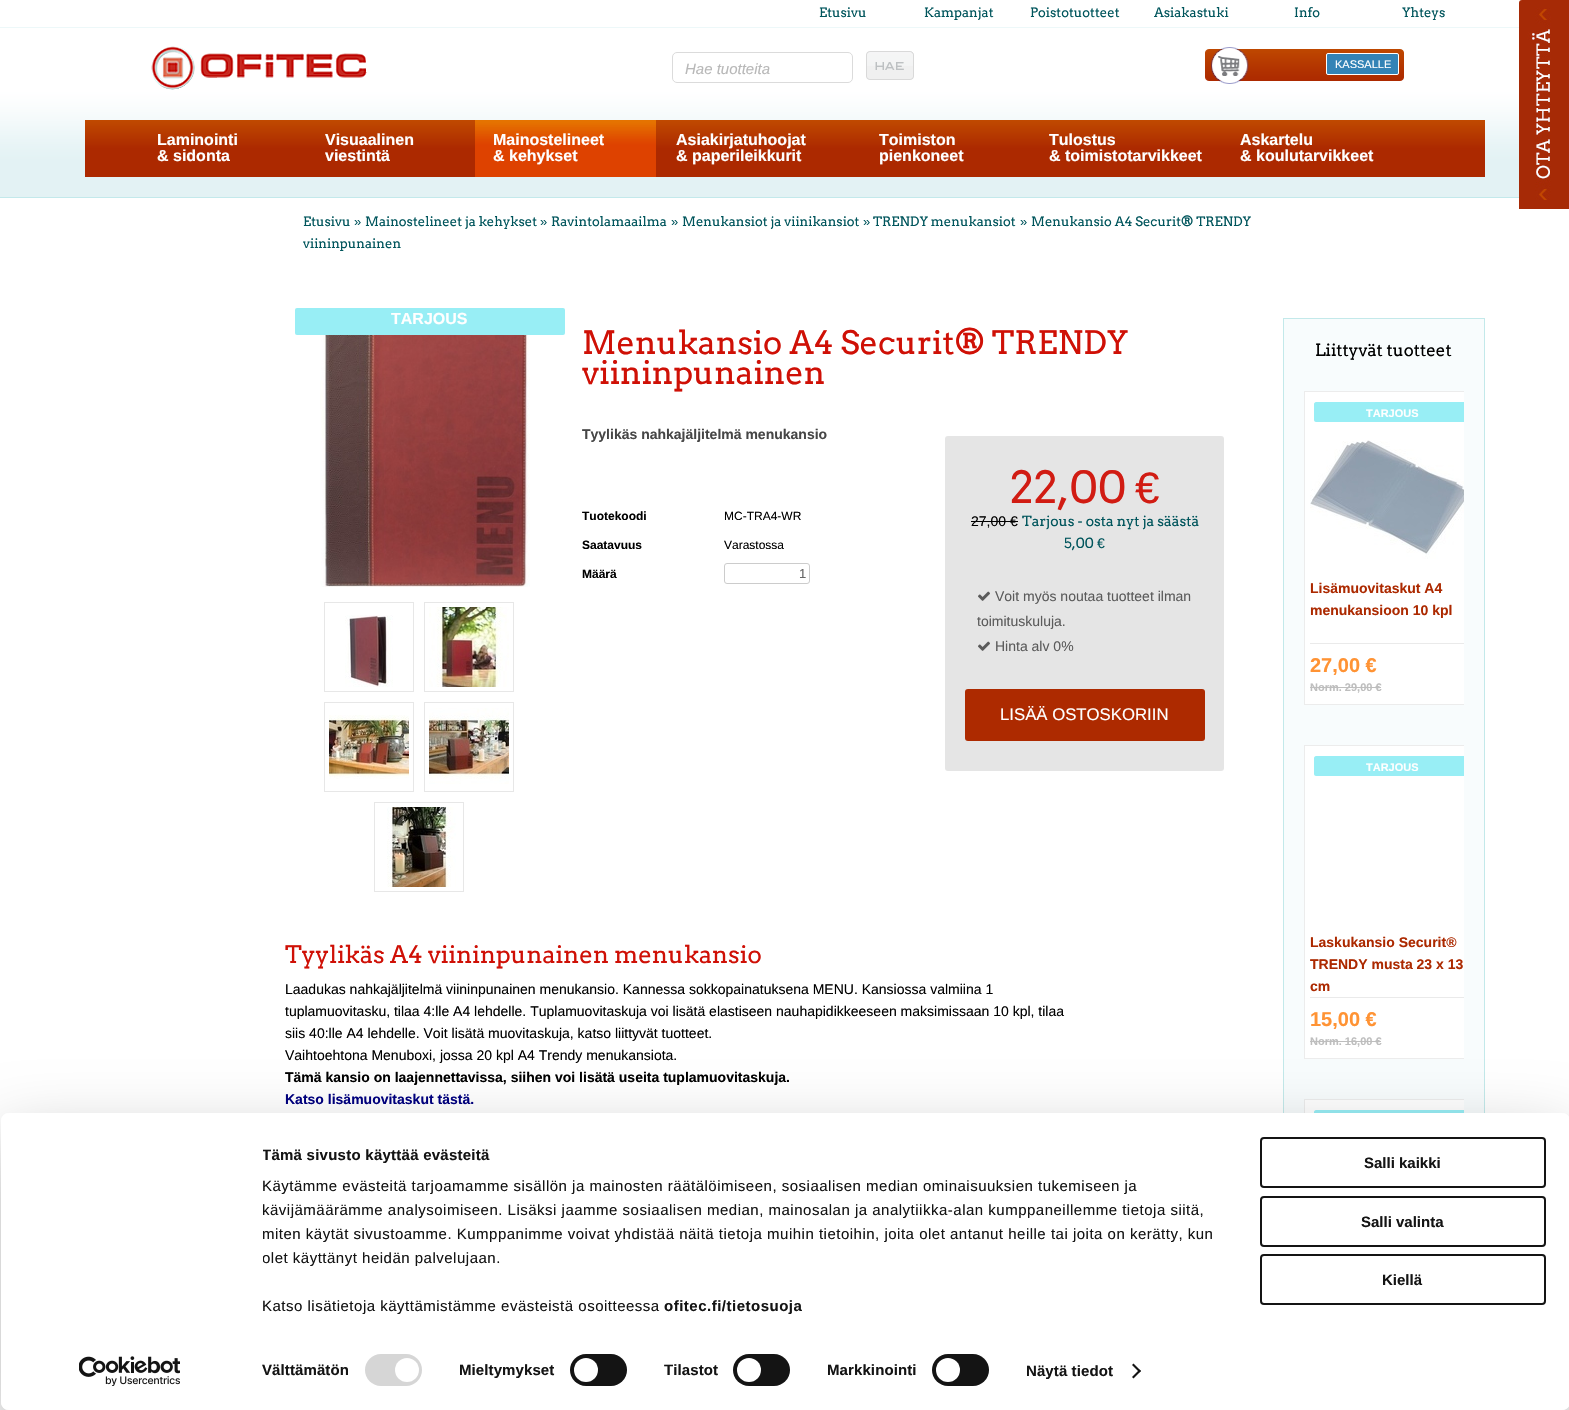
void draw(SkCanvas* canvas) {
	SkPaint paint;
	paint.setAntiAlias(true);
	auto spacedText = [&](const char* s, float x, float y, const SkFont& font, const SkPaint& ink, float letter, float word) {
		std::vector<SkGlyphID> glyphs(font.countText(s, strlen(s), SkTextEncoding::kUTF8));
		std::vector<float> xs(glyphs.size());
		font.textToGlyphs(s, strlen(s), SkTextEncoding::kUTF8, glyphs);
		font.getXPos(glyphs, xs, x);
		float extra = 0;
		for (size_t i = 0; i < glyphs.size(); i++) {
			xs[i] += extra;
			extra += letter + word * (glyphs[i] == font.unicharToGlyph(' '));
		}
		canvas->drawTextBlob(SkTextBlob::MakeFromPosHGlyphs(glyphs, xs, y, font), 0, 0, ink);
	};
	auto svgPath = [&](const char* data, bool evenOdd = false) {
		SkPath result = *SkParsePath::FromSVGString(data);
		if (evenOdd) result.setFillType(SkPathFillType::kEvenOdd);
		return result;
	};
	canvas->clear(0xffffffff);
	canvas->drawImageRect(SkImages::DeferredFromEncodedData(SkData::MakeFromFileName("img1.png")), SkRect::MakeXYWH(0, 27, 1519, 170), SkSamplingOptions());
	SkFont f1(fontMgr->matchFamilyStyle("Arvo", SkFontStyle::Normal()), 13);
	f1.setSubpixel(true);
	paint.setColor(0xff00555c);
	canvas->drawString("Etusivu", 819, 17, f1, paint);
	canvas->drawString("Kampanjat", 924, 17, f1, paint);
	canvas->drawString("Poistotuotteet", 1030, 17, f1, paint);
	canvas->drawString("Asiakastuki", 1154, 17, f1, paint);
	canvas->drawString("Info", 1294, 17, f1, paint);
	canvas->drawString("Yhteys", 1402, 17, f1, paint);
	canvas->drawImageRect(SkImages::DeferredFromEncodedData(SkData::MakeFromFileName("img2.png")), SkRect::MakeXYWH(1519, 0, 50, 209), SkSamplingOptions());
	paint.setColor(0xffc3e9eb);
	canvas->drawRect(SkRect::MakeXYWH(0, 197, 1519, 1), paint);
	canvas->drawImageRect(SkImages::DeferredFromEncodedData(SkData::MakeFromFileName("img3.png")), SkRect::MakeXYWH(151, 46, 216, 44), SkSamplingOptions());
	paint.setStroke(true);
	paint.setStrokeWidth(1);
	paint.setColor(0xffdbdbdb);
	canvas->drawRoundRect(SkRect::MakeXYWH(672.5, 52.5, 180, 30), 4.5, 4.5, paint);
	SkFont f2(fontMgr->matchFamilyStyle("Liberation Sans", SkFontStyle::Italic()), 15);
	f2.setSubpixel(true);
	paint.setStroke(false);
	paint.setColor(0xffb8b8b8);
	canvas->drawString("Hae tuotteita", 685, 74, f2, paint);
	canvas->drawImageRect(SkImages::DeferredFromEncodedData(SkData::MakeFromFileName("img4.png")), SkRect::MakeXYWH(866, 51, 48, 29), SkSamplingOptions());
	canvas->drawImageRect(SkImages::DeferredFromEncodedData(SkData::MakeFromFileName("img5.png")), SkRect::MakeXYWH(1205, 47, 199, 37), SkSamplingOptions());
	paint.setColor(0xff3383b6);
	canvas->drawRoundRect(SkRect::MakeXYWH(1326.5, 53.5, 72, 21), 1.5, 1.5, paint);
	paint.setStroke(true);
	paint.setColor(0xffffffff);
	canvas->drawRoundRect(SkRect::MakeXYWH(1326.5, 53.5, 72, 21), 1.5, 1.5, paint);
	SkFont f3(fontMgr->matchFamilyStyle("Liberation Sans", SkFontStyle::Normal()), 11);
	f3.setSubpixel(true);
	paint.setStroke(false);
	canvas->drawString("KASSALLE", 1335, 68, f3, paint);
	{
		const SkColor colors[] = {0xffc04a00, 0xffac2900, 0xffac2900};
		const float stops[] = {0, 0.5, 1};
		const SkPoint ends[] = {{785, 120}, {785, 177}};
		paint.setShader(SkGradientShader::MakeLinear(ends, colors, stops, 3, SkTileMode::kClamp));
		paint.setAlpha(255);
	}
	canvas->drawRect(SkRect::MakeXYWH(85, 120, 1400, 57), paint);
	SkFont f4(fontMgr->matchFamilyStyle("Liberation Sans", SkFontStyle::Bold()), 16);
	f4.setSubpixel(true);
	paint.setShader(nullptr);
	paint.setColor(0xffffffff);
	canvas->drawString("Laminointi", 157, 145, f4, paint);
	canvas->drawString("& sidonta", 157, 161, f4, paint);
	canvas->drawString("Visuaalinen", 325, 145, f4, paint);
	canvas->drawString("viestintä", 325, 161, f4, paint);
	canvas->drawImageRect(SkImages::DeferredFromEncodedData(SkData::MakeFromFileName("img6.png")), SkRect::MakeXYWH(475, 120, 181, 57), SkSamplingOptions());
	canvas->drawString("Mainostelineet", 493, 145, f4, paint);
	canvas->drawString("& kehykset", 493, 161, f4, paint);
	canvas->drawString("Asiakirjatuhoojat", 676, 145, f4, paint);
	canvas->drawString("& paperileikkurit", 676, 161, f4, paint);
	canvas->drawString("Toimiston", 879, 145, f4, paint);
	canvas->drawString("pienkoneet", 879, 161, f4, paint);
	canvas->drawString("Tulostus", 1049, 145, f4, paint);
	canvas->drawString("& toimistotarvikkeet", 1049, 161, f4, paint);
	canvas->drawString("Askartelu", 1240, 145, f4, paint);
	canvas->drawString("& koulutarvikkeet", 1240, 161, f4, paint);
	paint.setColor(0xff00555c);
	canvas->drawString("Etusivu", 303, 226, f1, paint);
	SkFont f5(fontMgr->matchFamilyStyle("Liberation Sans", SkFontStyle::Normal()), 13);
	f5.setSubpixel(true);
	canvas->drawString("»", 354, 226, f5, paint);
	canvas->drawString("Mainostelineet ja kehykset", 365, 226, f1, paint);
	canvas->drawString("»", 540, 226, f5, paint);
	canvas->drawString("Ravintolamaailma", 551, 226, f1, paint);
	canvas->drawString("»", 671, 226, f5, paint);
	canvas->drawString("Menukansiot ja viinikansiot", 682, 226, f1, paint);
	canvas->drawString("»", 863, 226, f5, paint);
	canvas->drawString("TRENDY menukansiot", 873, 226, f1, paint);
	canvas->drawString("»", 1020, 226, f5, paint);
	canvas->drawString("Menukansio A4 Securit® TRENDY", 1031, 226, f1, paint);
	canvas->drawString("viininpunainen", 303, 248, f1, paint);
	paint.setColor(0xff98eef5);
	canvas->drawRoundRect(SkRect::MakeXYWH(295, 308, 270, 27), 2, 2, paint);
	paint.setColor(0xffffffff);
	canvas->drawString("TARJOUS", 391, 324, f4, paint);
	canvas->drawImageRect(SkImages::DeferredFromEncodedData(SkData::MakeFromFileName("img7.png")), SkRect::MakeXYWH(320, 335, 210, 252), SkSamplingOptions());
	paint.setStroke(true);
	paint.setColor(0xffe7e7e7);
	canvas->drawRect(SkRect::MakeXYWH(324.5, 602.5, 89, 89), paint);
	canvas->drawRect(SkRect::MakeXYWH(424.5, 602.5, 89, 89), paint);
	canvas->drawImageRect(SkImages::DeferredFromEncodedData(SkData::MakeFromFileName("img8.png")), SkRect::MakeXYWH(345, 615, 48, 72), SkSamplingOptions());
	canvas->drawImageRect(SkImages::DeferredFromEncodedData(SkData::MakeFromFileName("img9.png")), SkRect::MakeXYWH(429, 607, 80, 80), SkSamplingOptions());
	canvas->drawRect(SkRect::MakeXYWH(324.5, 702.5, 89, 89), paint);
	canvas->drawRect(SkRect::MakeXYWH(424.5, 702.5, 89, 89), paint);
	canvas->drawImageRect(SkImages::DeferredFromEncodedData(SkData::MakeFromFileName("img10.png")), SkRect::MakeXYWH(329, 715, 80, 64), SkSamplingOptions());
	canvas->drawImageRect(SkImages::DeferredFromEncodedData(SkData::MakeFromFileName("img11.png")), SkRect::MakeXYWH(429, 708, 80, 76), SkSamplingOptions());
	canvas->drawRect(SkRect::MakeXYWH(374.5, 802.5, 89, 89), paint);
	canvas->drawImageRect(SkImages::DeferredFromEncodedData(SkData::MakeFromFileName("img12.png")), SkRect::MakeXYWH(387, 807, 69, 80), SkSamplingOptions());
	SkFont f6(fontMgr->matchFamilyStyle("Arvo", SkFontStyle::Normal()), 32.25);
	f6.setSubpixel(true);
	paint.setStroke(false);
	paint.setColor(0xffcf1006);
	canvas->drawString("Menukansio A4 Securit® TRENDY", 582, 354, f6, paint);
	canvas->drawString("viininpunainen", 582, 384, f6, paint);
	SkFont f7(fontMgr->matchFamilyStyle("Liberation Sans", SkFontStyle::Bold()), 14);
	f7.setSubpixel(true);
	paint.setColor(0xff464646);
	canvas->drawString("Tyylikäs nahkajäljitelmä menukansio", 582, 439, f7, paint);
	SkFont f8(fontMgr->matchFamilyStyle("Liberation Sans", SkFontStyle::Bold()), 12);
	f8.setSubpixel(true);
	paint.setColor(0xff000000);
	canvas->drawString("Tuotekoodi", 582, 520, f8, paint);
	SkFont f9(fontMgr->matchFamilyStyle("Liberation Sans", SkFontStyle::Normal()), 12);
	f9.setSubpixel(true);
	canvas->drawString("MC-TRA4-WR", 724, 520, f9, paint);
	canvas->drawString("Saatavuus", 582, 549, f8, paint);
	canvas->drawString("Varastossa", 724, 549, f9, paint);
	canvas->drawString("Määrä", 582, 578, f8, paint);
	paint.setStroke(true);
	paint.setColor(0xffcccccc);
	canvas->drawRoundRect(SkRect::MakeXYWH(724.5, 563.5, 85, 20), 2.5, 2.5, paint);
	paint.setStroke(false);
	paint.setColor(0xff676767);
	canvas->drawString("1", 799, 578, f5, paint);
	paint.setColor(0xffe5e5e5);
	canvas->drawRoundRect(SkRect::MakeXYWH(945, 436, 279, 335), 3, 3, paint);
	SkFont f10(fontMgr->matchFamilyStyle("Arvo", SkFontStyle::Normal()), 44);
	f10.setSubpixel(true);
	paint.setColor(0xffd11c13);
	canvas->drawString("22,00", 1010, 503, f10, paint);
	SkFont f11(fontMgr->matchFamilyStyle("Liberation Sans", SkFontStyle::Normal()), 44);
	f11.setSubpixel(true);
	canvas->drawString("€", 1135, 503, f11, paint);
	SkFont f12(fontMgr->matchFamilyStyle("Liberation Sans", SkFontStyle::Normal()), 14);
	f12.setSubpixel(true);
	paint.setColor(0xff000000);
	canvas->drawString("27,00 €", 971, 526, f12, paint);
	canvas->drawRect(SkRect::MakeXYWH(971, 521, 47, 1), paint);
	SkFont f13(fontMgr->matchFamilyStyle("Arvo", SkFontStyle::Normal()), 14);
	f13.setSubpixel(true);
	paint.setColor(0xff00555c);
	canvas->drawString("Tarjous - osta nyt ja säästä", 1022, 526, f13, paint);
	canvas->drawString("5,00", 1064, 548, f13, paint);
	canvas->drawString("€", 1097, 548, f12, paint);
	canvas->drawImageRect(SkImages::DeferredFromEncodedData(SkData::MakeFromFileName("img13.png")), SkRect::MakeXYWH(978, 591, 12, 10), SkSamplingOptions());
	paint.setColor(0xff5b5b5b);
	canvas->drawString("Voit myös noutaa tuotteet ilman", 995, 601, f12, paint);
	canvas->drawString("toimituskuluja.", 977, 626, f12, paint);
	canvas->drawImageRect(SkImages::DeferredFromEncodedData(SkData::MakeFromFileName("img13.png")), SkRect::MakeXYWH(978, 641, 12, 10), SkSamplingOptions());
	canvas->drawString("Hinta alv 0%", 995, 651, f12, paint);
	paint.setColor(0xffad2a00);
	canvas->drawRoundRect(SkRect::MakeXYWH(965, 689, 240, 52), 3, 3, paint);
	SkFont f14(fontMgr->matchFamilyStyle("Liberation Sans", SkFontStyle::Normal()), 16.75);
	f14.setSubpixel(true);
	paint.setColor(0xffffffff);
	canvas->drawString("LISÄÄ OSTOSKORIIN", 1000, 720, f14, paint);
	paint.setColor(0xfff8fcfd);
	canvas->drawRect(SkRect::MakeXYWH(1284, 319, 200, 794), paint);
	paint.setStroke(true);
	paint.setColor(0xffc3e9ea);
	canvas->drawRect(SkRect::MakeXYWH(1283.5, 318.5, 201, 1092), paint);
	SkFont f15(fontMgr->matchFamilyStyle("Arvo", SkFontStyle::Normal()), 16.75);
	f15.setSubpixel(true);
	paint.setStroke(false);
	paint.setColor(0xff000000);
	canvas->drawString("Liittyvät tuotteet", 1315, 356, f15, paint);
	paint.setColor(0xffffffff);
	canvas->drawRect(SkRect::MakeXYWH(1305, 392, 159, 312), paint);
	canvas->save();
	canvas->clipRect(SkRect::MakeXYWH(1304, 391, 160, 344));
	paint.setStroke(true);
	paint.setColor(0xffececec);
	canvas->drawRect(SkRect::MakeXYWH(1304.5, 391.5, 178, 313), paint);
	canvas->restore();
	paint.setStroke(false);
	paint.setColor(0xff98eef5);
	canvas->drawPath(svgPath("M1316 402H1464V422H1316C1315 422 1314 421 1314 420V404C1314 403 1315 402 1316 402Z"), paint);
	SkFont f16(fontMgr->matchFamilyStyle("Liberation Sans", SkFontStyle::Bold()), 11);
	f16.setSubpixel(true);
	paint.setColor(0xffffffff);
	canvas->drawString("TARJOUS", 1366, 417, f16, paint);
	canvas->drawImageRect(SkImages::DeferredFromEncodedData(SkData::MakeFromFileName("img14.png")), SkRect::MakeXYWH(1310, 440, 154, 119), SkSamplingOptions());
	paint.setColor(0xffac2900);
	canvas->drawString("Lisämuovitaskut A4", 1310, 593, f7, paint);
	canvas->drawString("menukansioon 10 kpl", 1310, 615, f7, paint);
	paint.setColor(0xffeaeaea);
	canvas->drawRect(SkRect::MakeXYWH(1310, 643, 154, 1), paint);
	SkFont f17(fontMgr->matchFamilyStyle("Liberation Sans", SkFontStyle::Bold()), 20);
	f17.setSubpixel(true);
	paint.setColor(0xffff9334);
	canvas->drawString("27,00 €", 1310, 672, f17, paint);
	paint.setColor(0xffbebebe);
	canvas->drawString("Norm. 29,00 €", 1310, 691, f16, paint);
	canvas->drawRect(SkRect::MakeXYWH(1310, 687, 71, 1), paint);
	paint.setColor(0xffffffff);
	canvas->drawRect(SkRect::MakeXYWH(1305, 746, 159, 312), paint);
	canvas->save();
	canvas->clipRect(SkRect::MakeXYWH(1304, 745, 160, 344));
	paint.setStroke(true);
	paint.setColor(0xffececec);
	canvas->drawRect(SkRect::MakeXYWH(1304.5, 745.5, 178, 313), paint);
	canvas->restore();
	paint.setStroke(false);
	paint.setColor(0xff98eef5);
	canvas->drawPath(svgPath("M1316 756H1464V776H1316C1315 776 1314 775 1314 774V758C1314 757 1315 756 1316 756Z"), paint);
	paint.setColor(0xffffffff);
	canvas->drawString("TARJOUS", 1366, 771, f16, paint);
	paint.setColor(0xffac2900);
	canvas->drawString("Laskukansio Securit®", 1310, 947, f7, paint);
	canvas->drawString("TRENDY musta 23 x 13", 1310, 969, f7, paint);
	canvas->drawString("cm", 1310, 991, f7, paint);
	paint.setColor(0xffeaeaea);
	canvas->drawRect(SkRect::MakeXYWH(1310, 997, 154, 1), paint);
	paint.setColor(0xffff9334);
	canvas->drawString("15,00 €", 1310, 1026, f17, paint);
	paint.setColor(0xffbebebe);
	canvas->drawString("Norm. 16,00 €", 1310, 1045, f16, paint);
	canvas->drawRect(SkRect::MakeXYWH(1310, 1041, 71, 1), paint);
	paint.setColor(0xffffffff);
	canvas->drawRect(SkRect::MakeXYWH(1305, 1100, 159, 13), paint);
	canvas->save();
	canvas->clipRect(SkRect::MakeXYWH(1304, 1099, 160, 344));
	paint.setStroke(true);
	paint.setColor(0xffececec);
	canvas->drawRect(SkRect::MakeXYWH(1304.5, 1099.5, 178, 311), paint);
	canvas->restore();
	paint.setStroke(false);
	paint.setColor(0xff98eef5);
	canvas->drawPath(svgPath("M1316 1110H1464V1130H1316C1315 1130 1314 1129 1314 1128V1112C1314 1111 1315 1110 1316 1110Z"), paint);
	SkFont f18(fontMgr->matchFamilyStyle("Arvo", SkFontStyle::Normal()), 24);
	f18.setSubpixel(true);
	paint.setColor(0xffcf1006);
	canvas->drawString("Tyylikäs A4 viininpunainen menukansio", 285, 963, f18, paint);
	paint.setColor(0xff000000);
	canvas->drawString("Laadukas nahkajäljitelmä viininpunainen menukansio. Kannessa sokkopainatuksena MENU. Kansiossa valmiina 1", 285, 994, f12, paint);
	canvas->drawString("tuplamuovitasku, tilaa 4:lle A4 lehdelle. Tuplamuovitaskuja voi lisätä elastiseen nauhapidikkeeseen maksimissaan 10 kpl, tilaa", 285, 1016, f12, paint);
	canvas->drawString("siis 40:lle A4 lehdelle. Voit lisätä muovitaskuja, katso liittyvät tuotteet.", 285, 1038, f12, paint);
	canvas->drawString("Vaihtoehtona Menuboxi, jossa 20 kpl A4 Trendy menukansiota.", 285, 1060, f12, paint);
	canvas->drawString("Tämä kansio on laajennettavissa, siihen voi lisätä useita tuplamuovitaskuja.", 285, 1082, f7, paint);
	paint.setColor(0xff000080);
	canvas->drawString("Katso lisämuovitaskut tästä.", 285, 1104, f7, paint);
	canvas->save();
	canvas->clipPath(svgPath("M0 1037H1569V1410H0ZM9 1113H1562C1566.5 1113 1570 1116.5 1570 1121V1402C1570 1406.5 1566.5 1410 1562 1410H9C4.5 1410 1 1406.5 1 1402V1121C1 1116.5 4.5 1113 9 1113Z", true), true);
	paint.setColor(0x4d000000);
	paint.setMaskFilter(SkMaskFilter::MakeBlur(kNormal_SkBlurStyle, 35));
	canvas->drawRoundRect(SkRect::MakeXYWH(1, 1143, 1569, 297), 8, 8, paint);
	paint.setMaskFilter(nullptr);
	canvas->restore();
	paint.setColor(0xffffffff);
	canvas->drawRoundRect(SkRect::MakeXYWH(1, 1113, 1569, 297), 8, 8, paint);
	canvas->save();
	canvas->clipRect(SkRect::MakeXYWH(263, 1143, 968, 175));
	SkFont f19(fontMgr->matchFamilyStyle("Liberation Sans", SkFontStyle::Bold()), 15);
	f19.setSubpixel(true);
	paint.setColor(0xff141414);
	spacedText("Tämä sivusto käyttää evästeitä", 262, 1160, f19, paint, 0.25, 0);
	canvas->restore();
	SkFont f20(fontMgr->matchFamilyStyle("Liberation Sans", SkFontStyle::Normal()), 15);
	f20.setSubpixel(true);
	spacedText("Käytämme evästeitä tarjoamamme sisällön ja mainosten räätälöimiseen, sosiaalisen median ominaisuuksien tukemiseen ja", 262, 1191, f20, paint, 0.5, 0);
	spacedText("kävijämäärämme analysoimiseen. Lisäksi jaamme sosiaalisen median, mainosalan ja analytiikka-alan kumppaneillemme tietoja siitä,", 262, 1215, f20, paint, 0.5, 0);
	spacedText("miten käytät sivustoamme. Kumppanimme voivat yhdistää näitä tietoja muihin tietoihin, joita olet antanut heille tai joita on kerätty, kun", 262, 1239, f20, paint, 0.5, 0);
	canvas->save();
	canvas->clipRect(SkRect::MakeXYWH(263, 1143, 968, 175));
	spacedText("olet käyttänyt heidän palvelujaan.", 262, 1263, f20, paint, 0.5, 0);
	canvas->restore();
	spacedText("Katso lisätietoja käyttämistämme evästeistä osoitteessa", 262, 1311, f20, paint, 0.5, 0);
	spacedText("ofitec.fi/tietosuoja", 664, 1311, f19, paint, 0.5, 0);
	spacedText("Välttämätön", 262, 1375, f19, paint, 0.1, 0);
	paint.setColor(0xffd6d6d6);
	canvas->drawRoundRect(SkRect::MakeXYWH(365, 1354, 57, 32), 16, 16, paint);
	paint.setColor(0xffffffff);
	canvas->drawCircle(407, 1370, 12, paint);
	paint.setColor(0xff141414);
	spacedText("Mieltymykset", 459, 1375, f19, paint, 0.1, 0);
	canvas->drawRoundRect(SkRect::MakeXYWH(570, 1354, 57, 32), 16, 16, paint);
	paint.setColor(0xffffffff);
	canvas->drawCircle(586, 1370, 12, paint);
	paint.setColor(0xff141414);
	spacedText("Tilastot", 664, 1375, f19, paint, 0.1, 0);
	canvas->drawRoundRect(SkRect::MakeXYWH(733, 1354, 57, 32), 16, 16, paint);
	paint.setColor(0xffffffff);
	canvas->drawCircle(749, 1370, 12, paint);
	paint.setColor(0xff141414);
	spacedText("Markkinointi", 827, 1375, f19, paint, 0.1, 0);
	canvas->drawRoundRect(SkRect::MakeXYWH(932, 1354, 57, 32), 16, 16, paint);
	paint.setColor(0xffffffff);
	canvas->drawCircle(948, 1370, 12, paint);
	paint.setColor(0xff141414);
	spacedText("Näytä tiedot", 1026, 1376, f19, paint, 0.1, 0);
	canvas->drawPath(svgPath("M1133.5 1363.5L1141 1371L1139.5 1372.5L1132 1365Z"), paint);
	canvas->drawPath(svgPath("M1139.5 1369.5L1141 1371L1133.5 1378.5L1132 1377Z"), paint);
	paint.setStroke(true);
	paint.setStrokeWidth(2);
	canvas->drawRoundRect(SkRect::MakeXYWH(1261, 1138, 284, 49), 3, 3, paint);
	paint.setStroke(false);
	canvas->drawString("Salli kaikki", 1364, 1168, f19, paint);
	paint.setStroke(true);
	canvas->drawRoundRect(SkRect::MakeXYWH(1261, 1197, 284, 49), 3, 3, paint);
	paint.setStroke(false);
	canvas->drawString("Salli valinta", 1361, 1227, f19, paint);
	paint.setStroke(true);
	canvas->drawRoundRect(SkRect::MakeXYWH(1261, 1255, 284, 49), 3, 3, paint);
	paint.setStroke(false);
	canvas->drawString("Kiellä", 1382, 1285, f19, paint);
	canvas->drawImageRect(SkImages::DeferredFromEncodedData(SkData::MakeFromFileName("img15.png")), SkRect::MakeXYWH(79, 1356, 101, 30), SkSamplingOptions());
}
